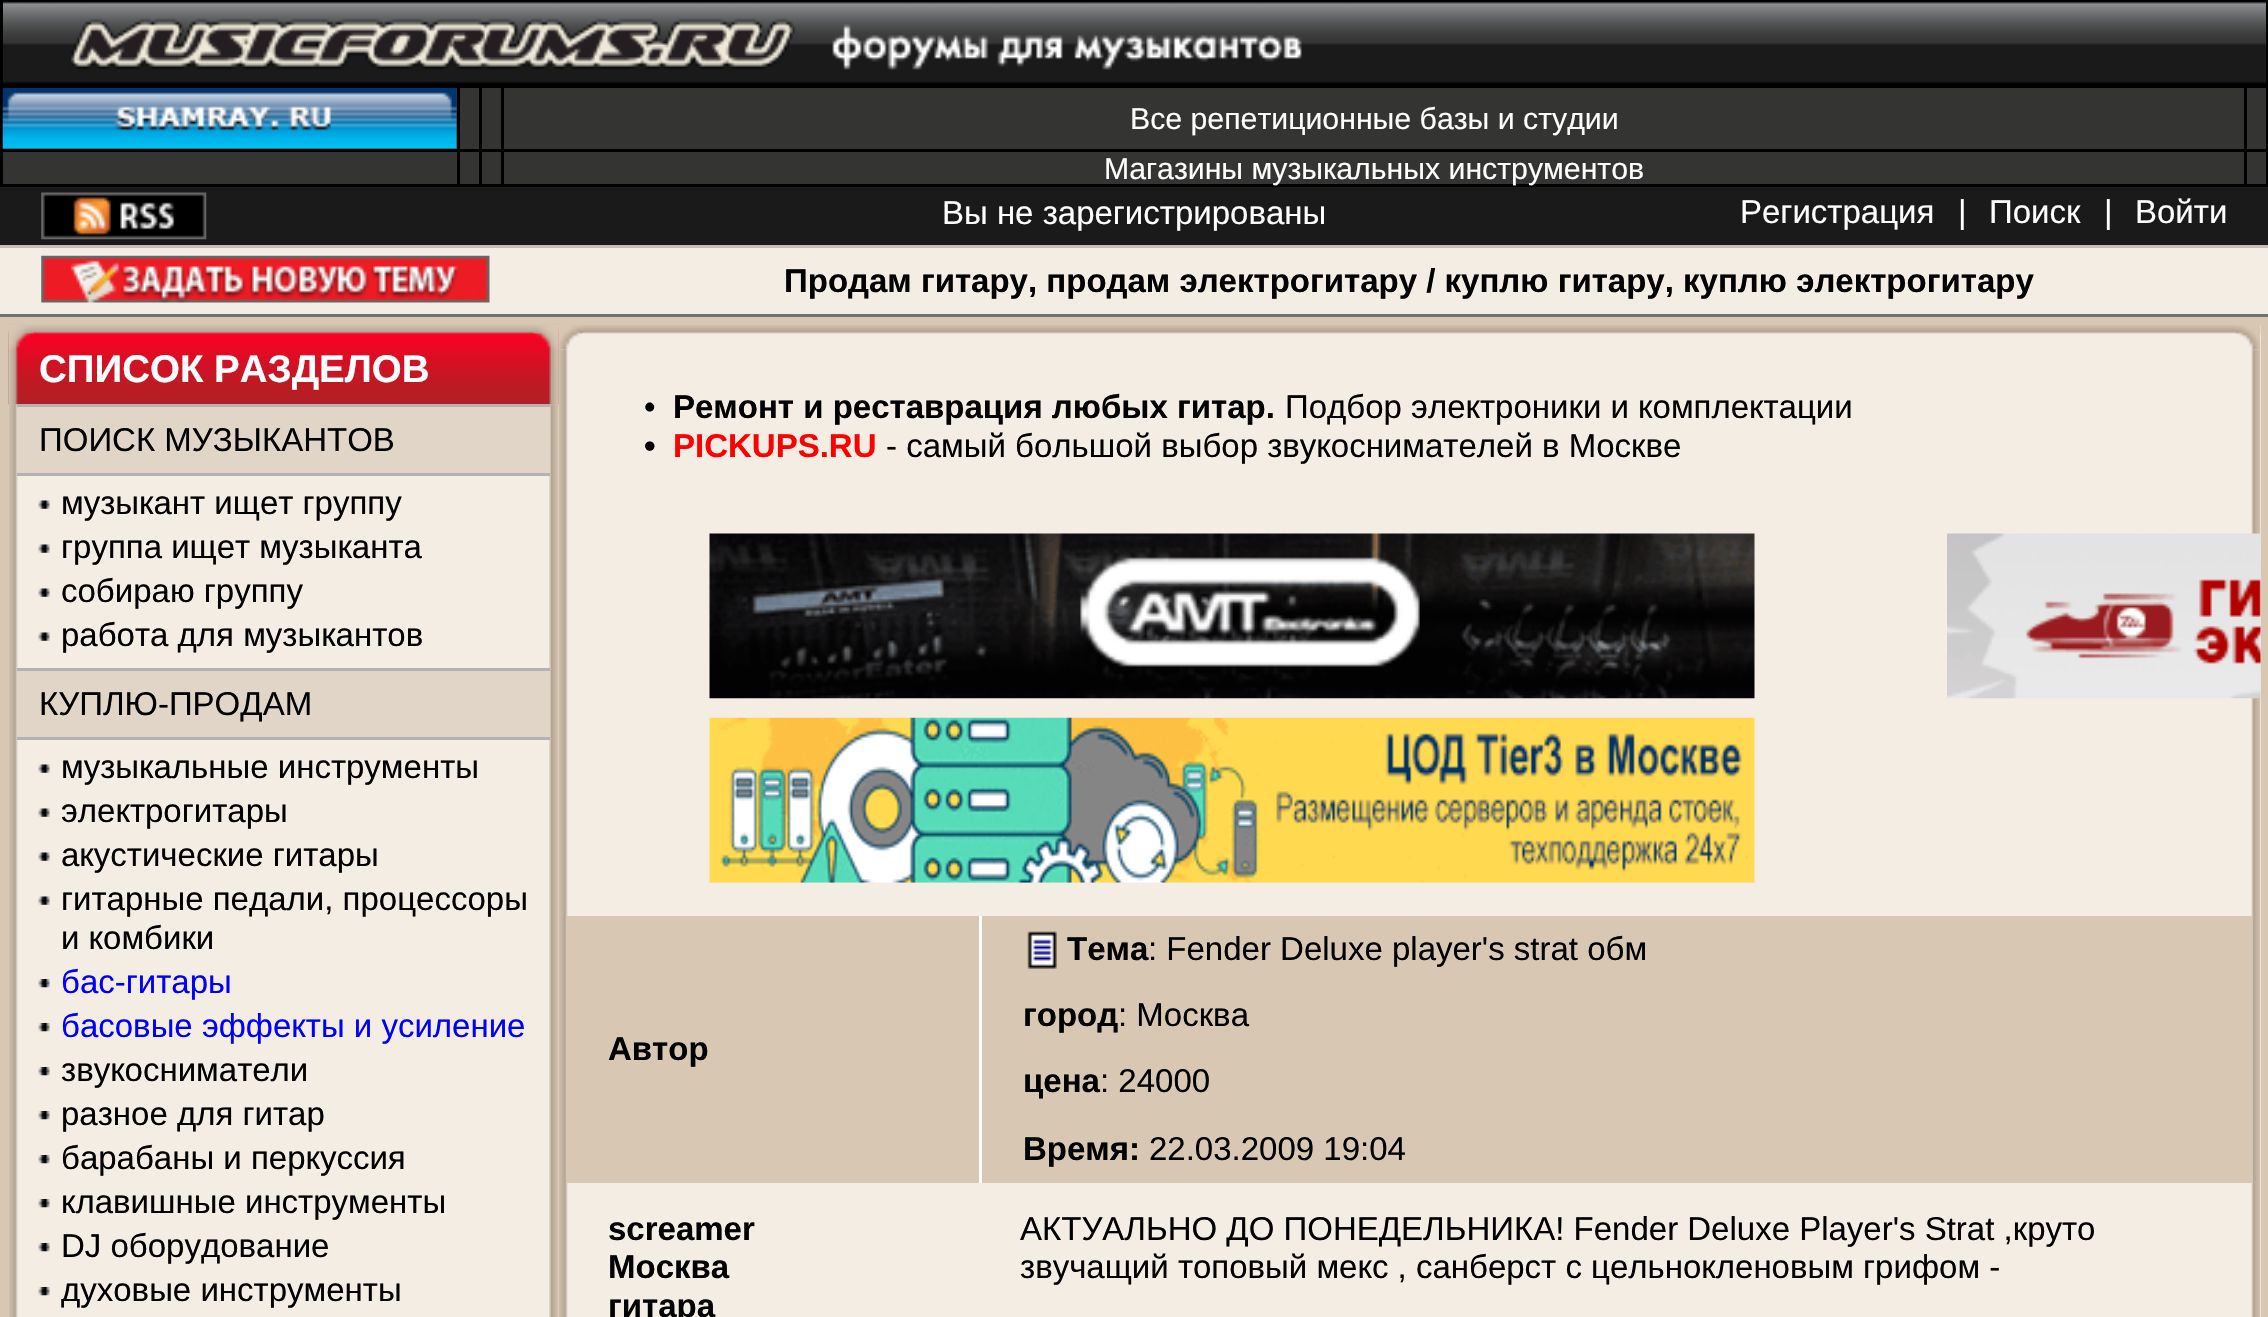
void draw(SkCanvas* canvas) {
	SkPaint paint;
	paint.setAntiAlias(true);
	canvas->clear(0xffd8c8b3);
	canvas->drawImageRect(SkImages::DeferredFromEncodedData(SkData::MakeFromFileName("img1.png")), SkRect::MakeXYWH(3, 0, 2263, 85), SkSamplingOptions());
	paint.setColor(0xff000000);
	canvas->drawRect(SkRect::MakeXYWH(2266, 0, 2, 85), paint);
	canvas->drawRect(SkRect::MakeXYWH(0, 0, 3, 85), paint);
	canvas->drawImageRect(SkImages::DeferredFromEncodedData(SkData::MakeFromFileName("img2.png")), SkRect::MakeXYWH(69, 18, 1233, 52), SkSamplingOptions());
	paint.setColor(0xff343433);
	canvas->drawRect(SkRect::MakeXYWH(3, 88, 2263, 96), paint);
	paint.setColor(0xff000000);
	canvas->drawRect(SkRect::MakeXYWH(2244, 85, 24, 3), paint);
	canvas->drawRect(SkRect::MakeXYWH(2244, 149, 24, 3), paint);
	canvas->drawRect(SkRect::MakeXYWH(2266, 149, 2, 38), paint);
	canvas->drawRect(SkRect::MakeXYWH(2244, 184, 24, 3), paint);
	canvas->drawRect(SkRect::MakeXYWH(2244, 149, 3, 38), paint);
	canvas->drawRect(SkRect::MakeXYWH(501, 149, 1746, 3), paint);
	canvas->drawRect(SkRect::MakeXYWH(2244, 85, 3, 66), paint);
	canvas->drawRect(SkRect::MakeXYWH(501, 85, 1746, 3), paint);
	canvas->drawRect(SkRect::MakeXYWH(501, 184, 1746, 3), paint);
	canvas->drawRect(SkRect::MakeXYWH(501, 149, 3, 38), paint);
	canvas->drawRect(SkRect::MakeXYWH(479, 149, 24, 3), paint);
	canvas->drawRect(SkRect::MakeXYWH(501, 85, 3, 66), paint);
	canvas->drawRect(SkRect::MakeXYWH(479, 85, 24, 3), paint);
	canvas->drawRect(SkRect::MakeXYWH(479, 184, 24, 3), paint);
	canvas->drawRect(SkRect::MakeXYWH(479, 149, 3, 38), paint);
	canvas->drawRect(SkRect::MakeXYWH(457, 149, 24, 3), paint);
	canvas->drawRect(SkRect::MakeXYWH(479, 85, 3, 66), paint);
	canvas->drawRect(SkRect::MakeXYWH(457, 85, 24, 3), paint);
	canvas->drawRect(SkRect::MakeXYWH(457, 184, 24, 3), paint);
	canvas->drawRect(SkRect::MakeXYWH(457, 149, 3, 38), paint);
	canvas->drawRect(SkRect::MakeXYWH(0, 149, 459, 3), paint);
	canvas->drawRect(SkRect::MakeXYWH(457, 85, 3, 66), paint);
	canvas->drawRect(SkRect::MakeXYWH(0, 85, 459, 3), paint);
	canvas->drawRect(SkRect::MakeXYWH(0, 184, 459, 3), paint);
	canvas->drawRect(SkRect::MakeXYWH(0, 149, 3, 38), paint);
	canvas->drawRect(SkRect::MakeXYWH(0, 85, 3, 66), paint);
	canvas->drawImageRect(SkImages::DeferredFromEncodedData(SkData::MakeFromFileName("img3.png")), SkRect::MakeXYWH(2, 88, 455, 61), SkSamplingOptions());
	SkFont f1(fontMgr->matchFamilyStyle("Liberation Sans", SkFontStyle::Normal()), 30.25);
	f1.setSubpixel(true);
	paint.setColor(0xffffffff);
	canvas->drawString("Все репетиционные базы и студии", 1130, 129, f1, paint);
	paint.setColor(0xff000000);
	canvas->drawRect(SkRect::MakeXYWH(2266, 85, 2, 66), paint);
	paint.setColor(0xffffffff);
	canvas->drawString("Магазины музыкальных инструментов", 1104, 179, f1, paint);
	paint.setColor(0xff1a1a1a);
	canvas->drawRect(SkRect::MakeXYWH(0, 187, 2268, 58), paint);
	paint.setColor(0xffc4beb7);
	canvas->drawRect(SkRect::MakeXYWH(0, 245, 2268, 3), paint);
	canvas->drawImageRect(SkImages::DeferredFromEncodedData(SkData::MakeFromFileName("img4.png")), SkRect::MakeXYWH(41, 192, 166, 48), SkSamplingOptions());
	SkFont f2(fontMgr->matchFamilyStyle("Liberation Sans", SkFontStyle::Normal()), 33);
	f2.setSubpixel(true);
	paint.setColor(0xffffffff);
	canvas->drawString("Вы не зарегистрированы", 942, 224, f2, paint);
	canvas->drawString("Регистрация", 1740, 223, f2, paint);
	canvas->drawString("|", 1958, 223, f2, paint);
	canvas->drawString("Поиск", 1989, 223, f2, paint);
	canvas->drawString("|", 2104, 223, f2, paint);
	canvas->drawString("Войти", 2135, 223, f2, paint);
	paint.setColor(0xfff4ede4);
	canvas->drawRect(SkRect::MakeXYWH(0, 248, 2268, 66), paint);
	paint.setColor(0xff717070);
	canvas->drawRect(SkRect::MakeXYWH(0, 314, 2268, 3), paint);
	canvas->drawImageRect(SkImages::DeferredFromEncodedData(SkData::MakeFromFileName("img5.png")), SkRect::MakeXYWH(41, 255, 449, 48), SkSamplingOptions());
	SkFont f3(fontMgr->matchFamilyStyle("Liberation Sans", SkFontStyle::Bold()), 33);
	f3.setSubpixel(true);
	paint.setColor(0xff000000);
	canvas->drawString("Продам гитару, продам электрогитару / куплю гитару, куплю электрогитару", 784, 292, f3, paint);
	paint.setColor(0xfff4ede4);
	canvas->drawRect(SkRect::MakeXYWH(8, 325, 2253, 992), paint);
	canvas->drawImageRect(SkImages::DeferredFromEncodedData(SkData::MakeFromFileName("img14.png")), SkRect::MakeXYWH(558, 325, 1703, 9), SkSamplingOptions());
	canvas->drawImageRect(SkImages::DeferredFromEncodedData(SkData::MakeFromFileName("img15.png")), SkRect::MakeXYWH(558, 325, 25, 25), SkSamplingOptions());
	canvas->drawImageRect(SkImages::DeferredFromEncodedData(SkData::MakeFromFileName("img17.png")), SkRect::MakeXYWH(558, 349, 10, 968), SkSamplingOptions());
	canvas->drawImageRect(SkImages::DeferredFromEncodedData(SkData::MakeFromFileName("img6.png")), SkRect::MakeXYWH(8, 324, 551, 81), SkSamplingOptions());
	canvas->drawImageRect(SkImages::DeferredFromEncodedData(SkData::MakeFromFileName("img7.png")), SkRect::MakeXYWH(8, 325, 25, 80), SkSamplingOptions());
	canvas->drawImageRect(SkImages::DeferredFromEncodedData(SkData::MakeFromFileName("img8.png")), SkRect::MakeXYWH(533, 325, 26, 79), SkSamplingOptions());
	SkFont f4(fontMgr->matchFamilyStyle("Liberation Sans", SkFontStyle::Bold()), 38.5);
	f4.setSubpixel(true);
	paint.setColor(0xffffffff);
	canvas->drawString("СПИСОК РАЗДЕЛОВ", 39, 382, f4, paint);
	canvas->drawImageRect(SkImages::DeferredFromEncodedData(SkData::MakeFromFileName("img9.png")), SkRect::MakeXYWH(8, 404, 10, 913), SkSamplingOptions());
	canvas->drawImageRect(SkImages::DeferredFromEncodedData(SkData::MakeFromFileName("img10.png")), SkRect::MakeXYWH(549, 404, 10, 913), SkSamplingOptions());
	paint.setColor(0xffe0d5c7);
	canvas->drawRect(SkRect::MakeXYWH(17, 407, 533, 66), paint);
	paint.setColor(0xffb3b3b3);
	canvas->drawRect(SkRect::MakeXYWH(17, 404, 533, 3), paint);
	canvas->drawRect(SkRect::MakeXYWH(17, 473, 533, 3), paint);
	paint.setColor(0xff000000);
	canvas->drawString("ПОИСК МУЗЫКАНТОВ", 39, 451, f2, paint);
	canvas->drawImageRect(SkImages::DeferredFromEncodedData(SkData::MakeFromFileName("img11.png")), SkRect::MakeXYWH(38, 500, 12, 9), SkSamplingOptions());
	canvas->drawString("музыкант ищет группу", 61, 514, f2, paint);
	canvas->drawImageRect(SkImages::DeferredFromEncodedData(SkData::MakeFromFileName("img11.png")), SkRect::MakeXYWH(38, 544, 12, 9), SkSamplingOptions());
	canvas->drawString("группа ищет музыканта", 61, 558, f2, paint);
	canvas->drawImageRect(SkImages::DeferredFromEncodedData(SkData::MakeFromFileName("img11.png")), SkRect::MakeXYWH(38, 588, 12, 9), SkSamplingOptions());
	canvas->drawString("собираю группу", 61, 602, f2, paint);
	canvas->drawImageRect(SkImages::DeferredFromEncodedData(SkData::MakeFromFileName("img11.png")), SkRect::MakeXYWH(38, 632, 12, 9), SkSamplingOptions());
	canvas->drawString("работа для музыкантов", 61, 646, f2, paint);
	paint.setColor(0xffe0d5c7);
	canvas->drawRect(SkRect::MakeXYWH(17, 671, 533, 66), paint);
	paint.setColor(0xffb3b3b3);
	canvas->drawRect(SkRect::MakeXYWH(17, 668, 533, 3), paint);
	canvas->drawRect(SkRect::MakeXYWH(17, 737, 533, 3), paint);
	paint.setColor(0xff000000);
	canvas->drawString("КУПЛЮ-ПРОДАМ", 39, 715, f2, paint);
	canvas->drawImageRect(SkImages::DeferredFromEncodedData(SkData::MakeFromFileName("img11.png")), SkRect::MakeXYWH(38, 764, 12, 9), SkSamplingOptions());
	canvas->drawString("музыкальные инструменты", 61, 778, f2, paint);
	canvas->drawImageRect(SkImages::DeferredFromEncodedData(SkData::MakeFromFileName("img11.png")), SkRect::MakeXYWH(38, 808, 12, 9), SkSamplingOptions());
	canvas->drawString("электрогитары", 61, 822, f2, paint);
	canvas->drawImageRect(SkImages::DeferredFromEncodedData(SkData::MakeFromFileName("img11.png")), SkRect::MakeXYWH(38, 852, 12, 9), SkSamplingOptions());
	canvas->drawString("акустические гитары", 61, 866, f2, paint);
	canvas->drawImageRect(SkImages::DeferredFromEncodedData(SkData::MakeFromFileName("img11.png")), SkRect::MakeXYWH(38, 896, 12, 9), SkSamplingOptions());
	canvas->drawString("гитарные педали, процессоры", 61, 910, f2, paint);
	canvas->drawString("и комбики", 61, 949, f2, paint);
	canvas->drawImageRect(SkImages::DeferredFromEncodedData(SkData::MakeFromFileName("img12.png")), SkRect::MakeXYWH(38, 979, 12, 9), SkSamplingOptions());
	paint.setColor(0xff0000ff);
	canvas->drawString("бас-гитары", 61, 993, f2, paint);
	canvas->drawImageRect(SkImages::DeferredFromEncodedData(SkData::MakeFromFileName("img12.png")), SkRect::MakeXYWH(38, 1023, 12, 9), SkSamplingOptions());
	canvas->drawString("басовые эффекты и усиление", 61, 1037, f2, paint);
	canvas->drawImageRect(SkImages::DeferredFromEncodedData(SkData::MakeFromFileName("img12.png")), SkRect::MakeXYWH(38, 1067, 12, 9), SkSamplingOptions());
	paint.setColor(0xff000000);
	canvas->drawString("звукосниматели", 61, 1081, f2, paint);
	canvas->drawImageRect(SkImages::DeferredFromEncodedData(SkData::MakeFromFileName("img12.png")), SkRect::MakeXYWH(38, 1111, 12, 9), SkSamplingOptions());
	canvas->drawString("разное для гитар", 61, 1125, f2, paint);
	canvas->drawImageRect(SkImages::DeferredFromEncodedData(SkData::MakeFromFileName("img12.png")), SkRect::MakeXYWH(38, 1155, 12, 9), SkSamplingOptions());
	canvas->drawString("барабаны и перкуссия", 61, 1169, f2, paint);
	canvas->drawImageRect(SkImages::DeferredFromEncodedData(SkData::MakeFromFileName("img12.png")), SkRect::MakeXYWH(38, 1199, 12, 9), SkSamplingOptions());
	canvas->drawString("клавишные инструменты", 61, 1213, f2, paint);
	canvas->drawImageRect(SkImages::DeferredFromEncodedData(SkData::MakeFromFileName("img12.png")), SkRect::MakeXYWH(38, 1243, 12, 9), SkSamplingOptions());
	canvas->drawString("DJ оборудование", 61, 1257, f2, paint);
	canvas->drawImageRect(SkImages::DeferredFromEncodedData(SkData::MakeFromFileName("img13.png")), SkRect::MakeXYWH(38, 1287, 12, 9), SkSamplingOptions());
	canvas->drawString("духовые инструменты", 61, 1301, f2, paint);
	canvas->drawImageRect(SkImages::DeferredFromEncodedData(SkData::MakeFromFileName("img16.png")), SkRect::MakeXYWH(2235, 325, 26, 25), SkSamplingOptions());
	canvas->drawImageRect(SkImages::DeferredFromEncodedData(SkData::MakeFromFileName("img18.png")), SkRect::MakeXYWH(2251, 349, 10, 968), SkSamplingOptions());
	canvas->drawString("•", 644, 418, f2, paint);
	canvas->drawString("Ремонт и реставрация любых гитар.", 673, 418, f3, paint);
	canvas->drawString("Подбор электроники и комплектации", 1285, 418, f2, paint);
	canvas->drawString("•", 644, 457, f3, paint);
	paint.setColor(0xffff0000);
	canvas->drawString("PICKUPS.RU", 673, 457, f3, paint);
	paint.setColor(0xff000000);
	canvas->drawString("- самый большой выбор звукоснимателей в Москве", 886, 457, f2, paint);
	canvas->drawImageRect(SkImages::DeferredFromEncodedData(SkData::MakeFromFileName("img19.png")), SkRect::MakeXYWH(709, 533, 1046, 166), SkSamplingOptions());
	canvas->drawImageRect(SkImages::DeferredFromEncodedData(SkData::MakeFromFileName("img20.png")), SkRect::MakeXYWH(1947, 533, 314, 166), SkSamplingOptions());
	canvas->drawImageRect(SkImages::DeferredFromEncodedData(SkData::MakeFromFileName("img21.png")), SkRect::MakeXYWH(709, 717, 1046, 166), SkSamplingOptions());
	paint.setColor(0xffd8c8b3);
	canvas->drawRect(SkRect::MakeXYWH(982, 916, 1270, 267), paint);
	paint.setColor(0xffffffff);
	canvas->drawRect(SkRect::MakeXYWH(979, 916, 3, 267), paint);
	canvas->drawImageRect(SkImages::DeferredFromEncodedData(SkData::MakeFromFileName("img22.png")), SkRect::MakeXYWH(1027, 931, 30, 38), SkSamplingOptions());
	paint.setColor(0xff000000);
	canvas->drawString("Тема", 1067, 960, f3, paint);
	canvas->drawString(": Fender Deluxe player's strat обм", 1148, 960, f2, paint);
	canvas->drawString("город", 1023, 1026, f3, paint);
	canvas->drawString(": Москва", 1118, 1026, f2, paint);
	paint.setColor(0xffd8c8b3);
	canvas->drawRect(SkRect::MakeXYWH(567, 916, 412, 267), paint);
	paint.setColor(0xff000000);
	canvas->drawString("Автор", 608, 1060, f3, paint);
	canvas->drawString("цена", 1023, 1092, f3, paint);
	canvas->drawString(": 24000", 1100, 1092, f2, paint);
	canvas->drawString("Время:", 1023, 1160, f3, paint);
	canvas->drawString("22.03.2009 19:04", 1149, 1160, f2, paint);
	canvas->drawString("screamer", 608, 1240, f3, paint);
	canvas->drawString("Москва", 608, 1278, f3, paint);
	canvas->drawString("гитара", 608, 1317, f3, paint);
	canvas->drawString("АКТУАЛЬНО ДО ПОНЕДЕЛЬНИКА! Fender Deluxe Player's Strat ,круто", 1020, 1240, f2, paint);
	canvas->drawString("звучащий топовый мекс , санберст с цельнокленовым грифом -", 1020, 1278, f2, paint);
}
